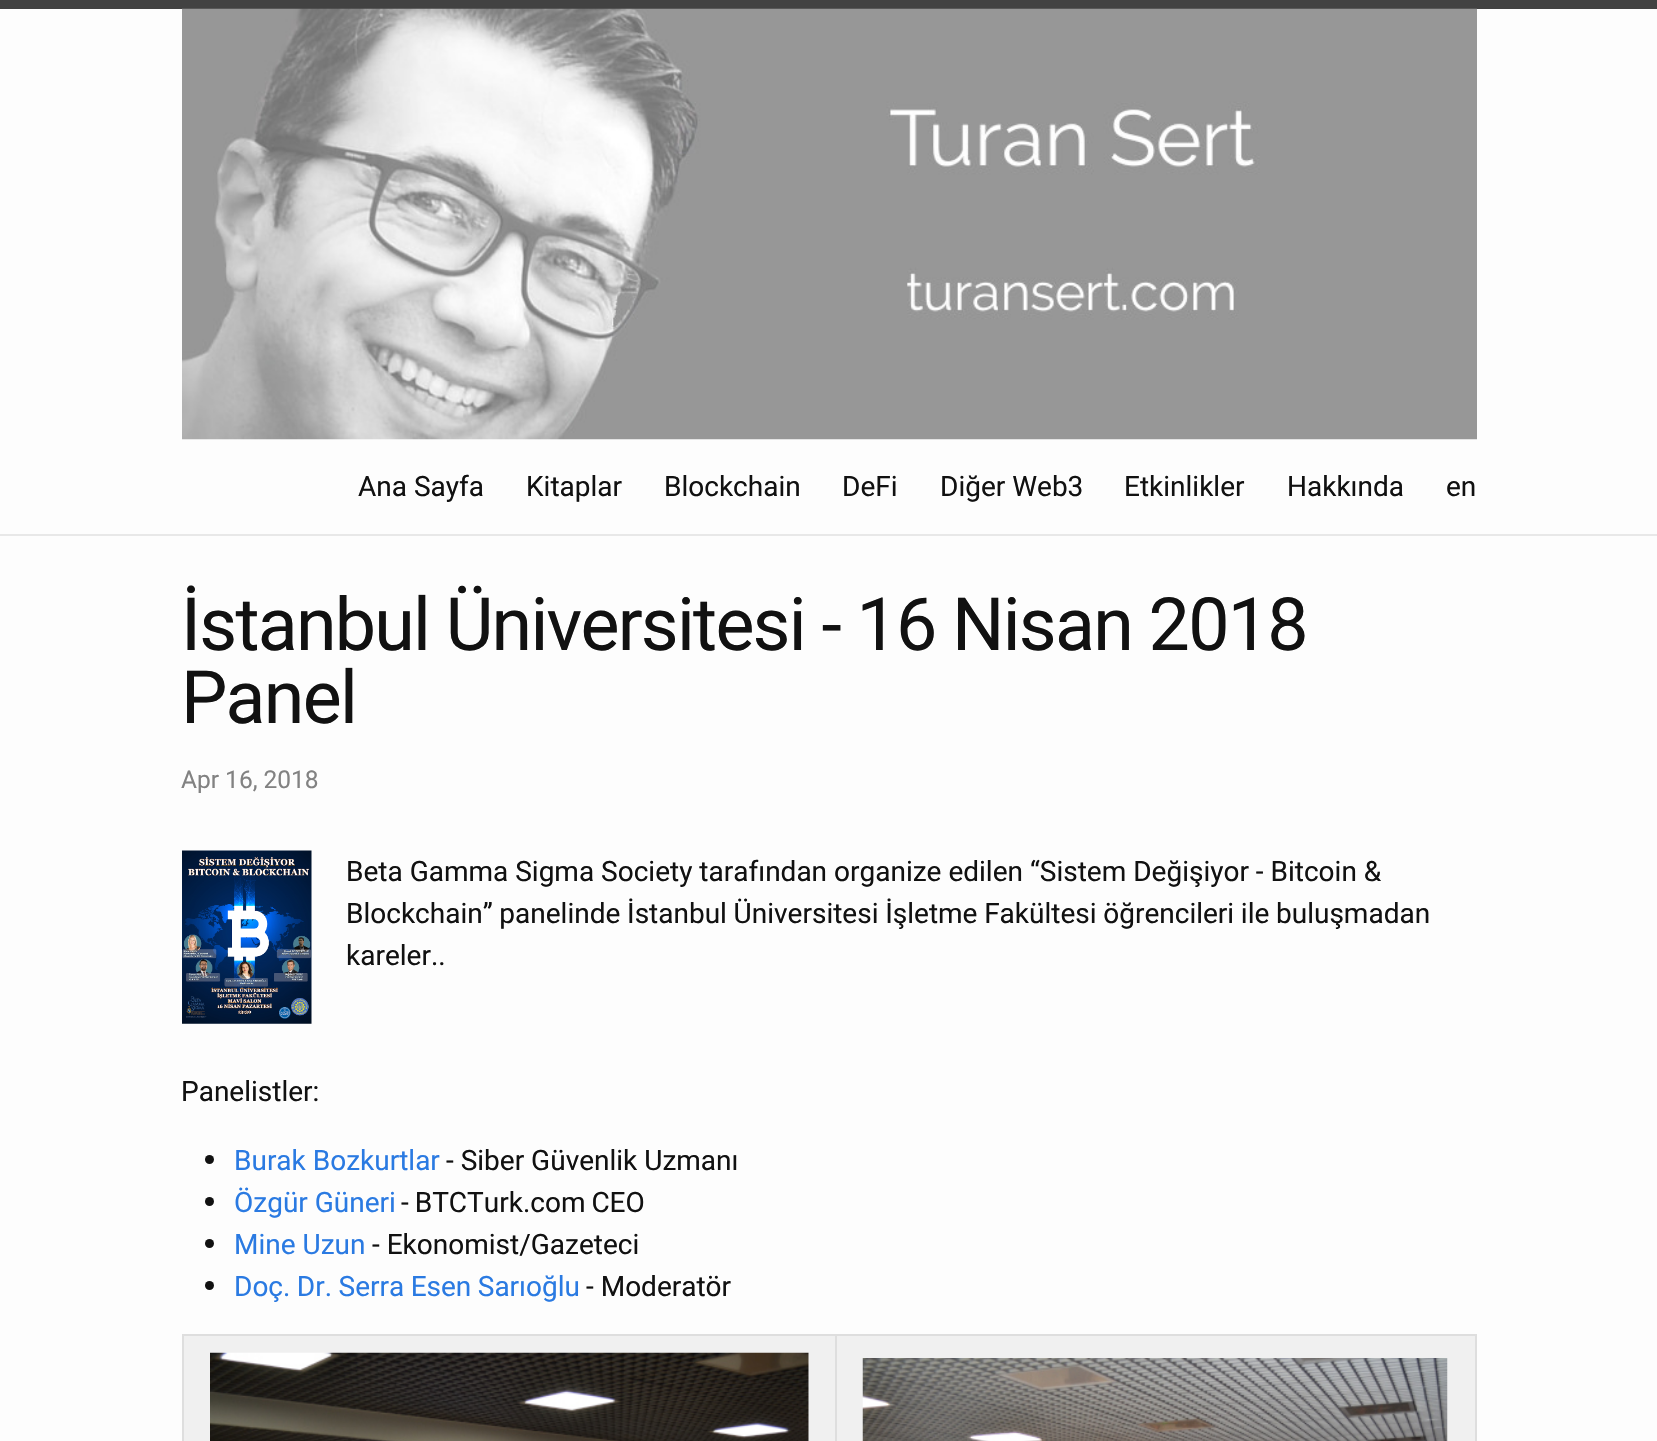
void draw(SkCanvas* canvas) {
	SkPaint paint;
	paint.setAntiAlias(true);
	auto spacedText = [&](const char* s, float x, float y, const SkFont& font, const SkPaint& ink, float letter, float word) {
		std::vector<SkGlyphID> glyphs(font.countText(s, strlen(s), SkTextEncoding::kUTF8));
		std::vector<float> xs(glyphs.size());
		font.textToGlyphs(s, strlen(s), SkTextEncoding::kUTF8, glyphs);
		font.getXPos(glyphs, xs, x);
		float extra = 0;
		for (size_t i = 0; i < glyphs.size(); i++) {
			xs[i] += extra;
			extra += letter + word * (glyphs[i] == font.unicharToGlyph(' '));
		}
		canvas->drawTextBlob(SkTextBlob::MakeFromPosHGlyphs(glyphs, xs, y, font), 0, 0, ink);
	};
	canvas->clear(0xfffdfdfd);
	paint.setColor(0xff424242);
	canvas->drawRect(SkRect::MakeXYWH(0, 0, 1657, 9), paint);
	paint.setColor(0xffe8e8e8);
	canvas->drawRect(SkRect::MakeXYWH(0, 534, 1657, 2), paint);
	canvas->drawImageRect(SkImages::DeferredFromEncodedData(SkData::MakeFromFileName("img1.png")), SkRect::MakeXYWH(182, 8, 1295, 432), SkSamplingOptions());
	SkFont f1(fontMgr->matchFamilyStyle("Roboto", SkFontStyle::Normal()), 28);
	f1.setSubpixel(true);
	paint.setColor(0xff111111);
	canvas->drawString("Ana Sayfa", 358, 496, f1, paint);
	canvas->drawString("Kitaplar", 526, 496, f1, paint);
	canvas->drawString("Blockchain", 664, 496, f1, paint);
	canvas->drawString("DeFi", 842, 496, f1, paint);
	canvas->drawString("Diğer Web3", 940, 496, f1, paint);
	canvas->drawString("Etkinlikler", 1124, 496, f1, paint);
	canvas->drawString("Hakkında", 1287, 496, f1, paint);
	canvas->drawString("en", 1446, 496, f1, paint);
	SkFont f2(fontMgr->matchFamilyStyle("Roboto", SkFontStyle::Normal()), 73.5);
	f2.setSubpixel(true);
	spacedText("İstanbul Üniversitesi - 16 Nisan 2018", 181, 650, f2, paint, -1.75, 0);
	spacedText("Panel", 181, 723, f2, paint, -1.75, 0);
	SkFont f3(fontMgr->matchFamilyStyle("Roboto", SkFontStyle::Normal()), 24.5);
	f3.setSubpixel(true);
	paint.setColor(0xff828282);
	canvas->drawString("Apr 16, 2018", 181, 788, f3, paint);
	canvas->drawImageRect(SkImages::DeferredFromEncodedData(SkData::MakeFromFileName("img2.png")), SkRect::MakeXYWH(182, 850, 130, 174), SkSamplingOptions());
	paint.setColor(0xff111111);
	canvas->drawString("Beta Gamma Sigma Society tarafından organize edilen “Sistem Değişiyor - Bitcoin &", 346, 881, f1, paint);
	spacedText("Blockchain” panelinde İstanbul Üniversitesi İşletme Fakültesi öğrencileri ile buluşmadan", 346, 923, f1, paint, 0, -0.25);
	canvas->drawString("kareler..", 346, 965, f1, paint);
	canvas->drawString("Panelistler:", 181, 1101, f1, paint);
	canvas->drawCircle(209.5, 1159.5, 4.5, paint);
	paint.setColor(0xff2a7ae2);
	canvas->drawString("Burak Bozkurtlar", 234, 1170, f1, paint);
	paint.setColor(0xff111111);
	canvas->drawString("- Siber Güvenlik Uzmanı", 446, 1170, f1, paint);
	canvas->drawCircle(209.5, 1201.5, 4.5, paint);
	paint.setColor(0xff2a7ae2);
	canvas->drawString("Özgür Güneri", 234, 1212, f1, paint);
	paint.setColor(0xff111111);
	spacedText("- BTCTurk.com CEO", 401, 1212, f1, paint, 0, -1);
	canvas->drawCircle(209.5, 1243.5, 4.5, paint);
	paint.setColor(0xff2a7ae2);
	canvas->drawString("Mine Uzun", 234, 1254, f1, paint);
	paint.setColor(0xff111111);
	canvas->drawString("- Ekonomist/Gazeteci", 372, 1254, f1, paint);
	canvas->drawCircle(209.5, 1285.5, 4.5, paint);
	paint.setColor(0xff2a7ae2);
	spacedText("Doç. Dr. Serra Esen Sarıoğlu", 234, 1296, f1, paint, 0, -0.5);
	paint.setColor(0xff111111);
	canvas->drawString("- Moderatör", 586, 1296, f1, paint);
	paint.setColor(0xfff0f0f0);
	canvas->drawRect(SkRect::MakeXYWH(184, 1336, 651, 105), paint);
	paint.setColor(0xffdedede);
	canvas->drawRect(SkRect::MakeXYWH(835, 1334, 642, 2), paint);
	canvas->drawRect(SkRect::MakeXYWH(835, 1334, 2, 107), paint);
	canvas->drawRect(SkRect::MakeXYWH(182, 1334, 655, 2), paint);
	canvas->drawRect(SkRect::MakeXYWH(182, 1334, 2, 107), paint);
	canvas->drawImageRect(SkImages::DeferredFromEncodedData(SkData::MakeFromFileName("img3.png")), SkRect::MakeXYWH(210, 1352, 599, 89), SkSamplingOptions());
	paint.setColor(0xfff0f0f0);
	canvas->drawRect(SkRect::MakeXYWH(837, 1336, 638, 105), paint);
	paint.setColor(0xffdedede);
	canvas->drawRect(SkRect::MakeXYWH(1475, 1334, 2, 107), paint);
	canvas->drawImageRect(SkImages::DeferredFromEncodedData(SkData::MakeFromFileName("img4.png")), SkRect::MakeXYWH(862, 1358, 586, 83), SkSamplingOptions());
}
